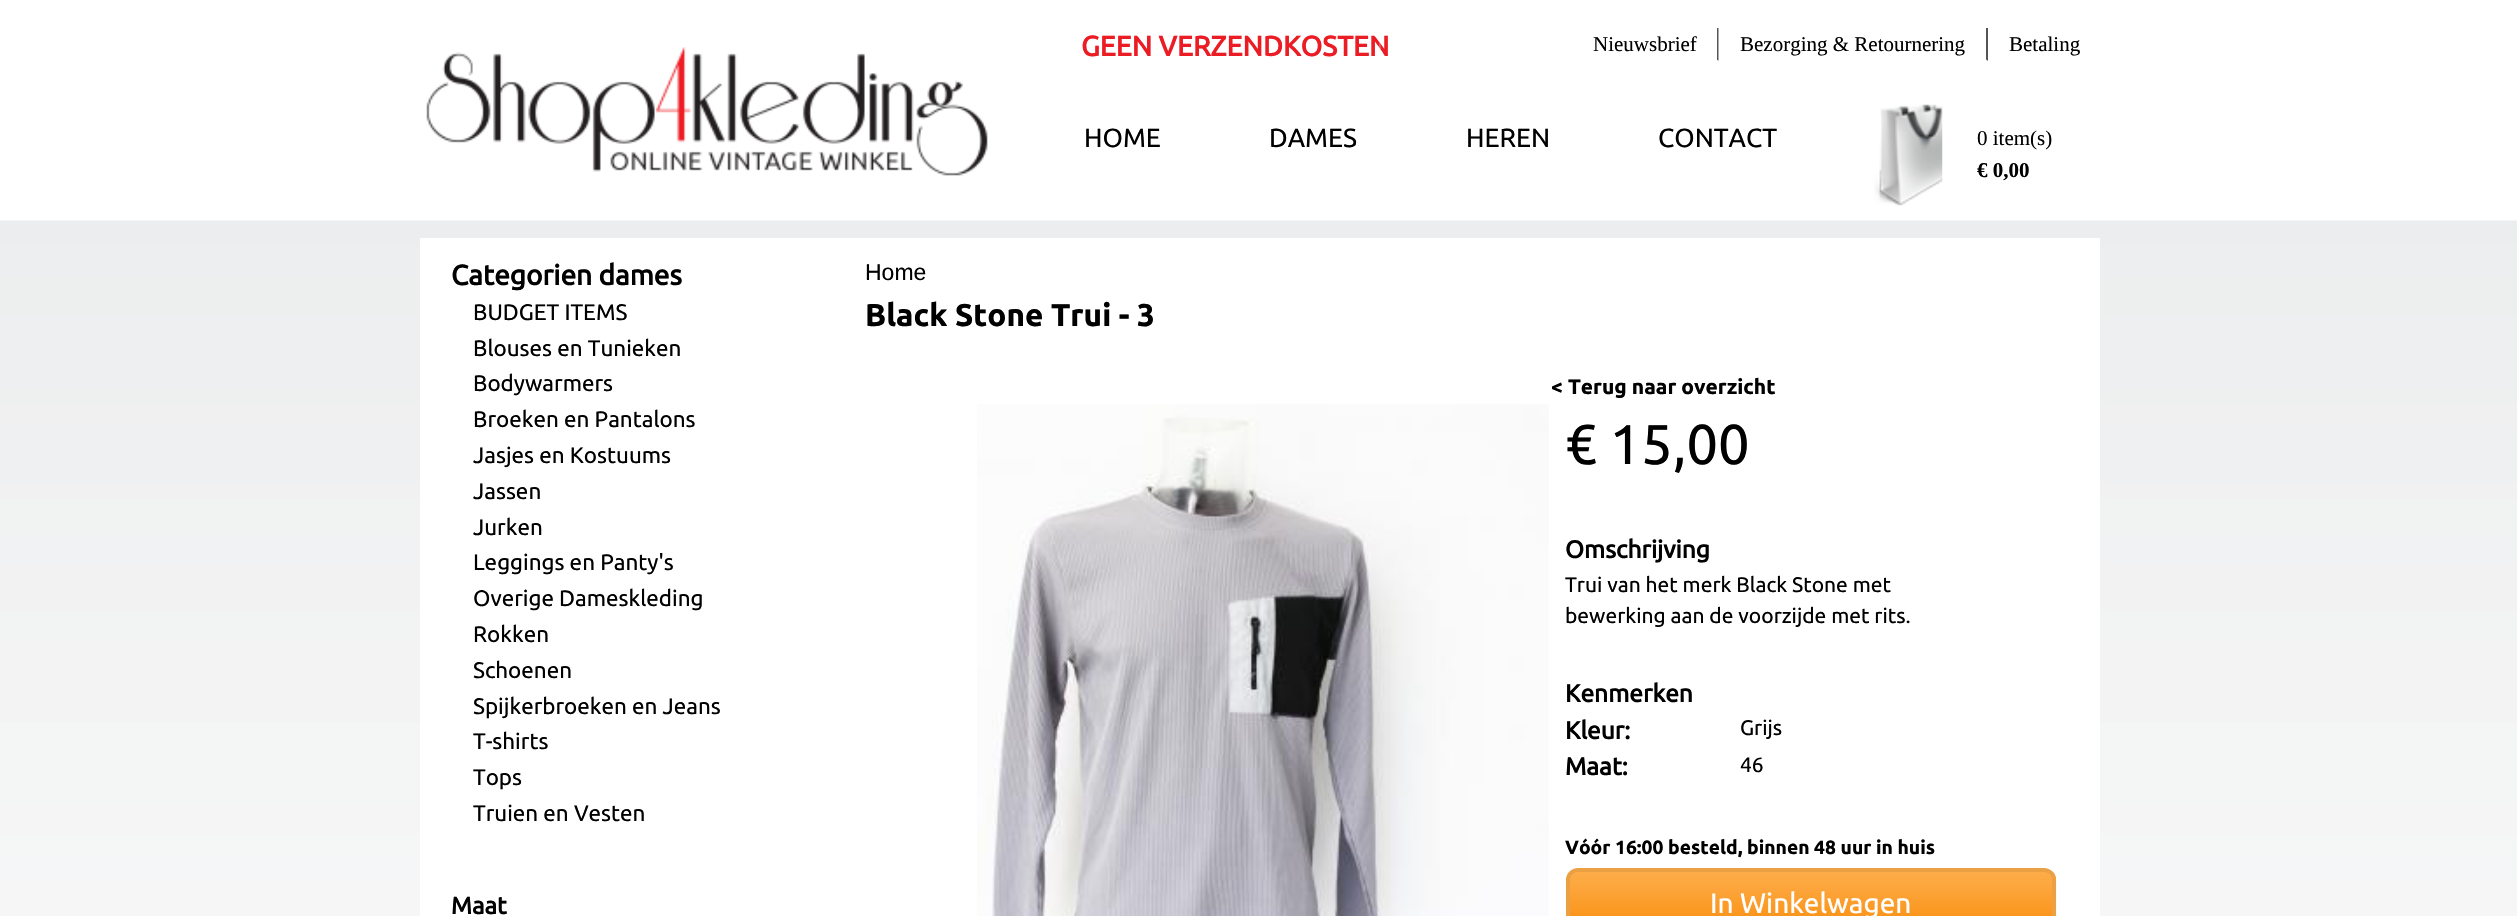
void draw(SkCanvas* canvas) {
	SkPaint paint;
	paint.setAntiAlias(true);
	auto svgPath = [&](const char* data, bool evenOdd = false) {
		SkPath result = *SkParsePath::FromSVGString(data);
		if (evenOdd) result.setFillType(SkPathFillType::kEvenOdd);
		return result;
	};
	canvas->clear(0xffffffff);
	canvas->drawImageRect(SkImages::DeferredFromEncodedData(SkData::MakeFromFileName("img1.png")), SkRect::MakeXYWH(426, 47, 562, 129), SkSamplingOptions());
	SkFont f1(fontMgr->matchFamilyStyle("Ubuntu", SkFontStyle::Bold()), 28);
	f1.setSubpixel(true);
	paint.setColor(0xffeb1c24);
	canvas->drawString("GEEN VERZENDKOSTEN", 1081, 56, f1, paint);
	paint.setStroke(true);
	paint.setStrokeWidth(2);
	paint.setColor(0x33ffffff);
	canvas->drawRect(SkRect::MakeXYWH(1380, 27, 702, 35), paint);
	paint.setStroke(false);
	paint.setColor(0xff555555);
	canvas->drawPath(svgPath("M1718.5 28V61L1717 59.5V28Z"), paint);
	SkFont f2(fontMgr->matchFamilyStyle("Liberation Serif", SkFontStyle::Normal()), 21);
	f2.setSubpixel(true);
	paint.setColor(0xff000000);
	canvas->drawString("Nieuwsbrief", 1593, 51, f2, paint);
	paint.setColor(0xff555555);
	canvas->drawPath(svgPath("M1988 28V61L1986 59.5V28Z"), paint);
	paint.setColor(0x33ffffff);
	canvas->drawPath(svgPath("M1988 61H1718V60H1986Z"), paint);
	paint.setColor(0xff000000);
	canvas->drawString("Bezorging & Retournering", 1740, 51, f2, paint);
	canvas->drawString("Betaling", 2009, 51, f2, paint);
	SkFont f3(fontMgr->matchFamilyStyle("Ubuntu", SkFontStyle::Normal()), 26.25);
	f3.setSubpixel(true);
	canvas->drawString("HOME", 1084, 147, f3, paint);
	canvas->drawString("DAMES", 1269, 147, f3, paint);
	canvas->drawString("HEREN", 1466, 147, f3, paint);
	canvas->drawString("CONTACT", 1658, 147, f3, paint);
	canvas->drawImageRect(SkImages::DeferredFromEncodedData(SkData::MakeFromFileName("img2.png")), SkRect::MakeXYWH(1874, 104, 69, 102), SkSamplingOptions());
	canvas->drawString("0 item(s)", 1977, 145, f2, paint);
	SkFont f4(fontMgr->matchFamilyStyle("Liberation Serif", SkFontStyle::Bold()), 21);
	f4.setSubpixel(true);
	canvas->drawString("€ 0,00", 1977, 177, f4, paint);
	canvas->drawImageRect(SkImages::DeferredFromEncodedData(SkData::MakeFromFileName("img3.png")), SkRect::MakeXYWH(0, 220, 2517, 696), SkSamplingOptions());
	paint.setColor(0xffffffff);
	canvas->drawRect(SkRect::MakeXYWH(420, 238, 1680, 678), paint);
	paint.setColor(0xff000000);
	canvas->drawString("Categorien dames", 451, 285, f1, paint);
	SkFont f5(fontMgr->matchFamilyStyle("Ubuntu", SkFontStyle::Normal()), 22.4);
	f5.setSubpixel(true);
	canvas->drawString("BUDGET ITEMS", 473, 320, f5, paint);
	canvas->drawString("Blouses en Tunieken", 473, 356, f5, paint);
	canvas->drawString("Bodywarmers", 473, 391, f5, paint);
	canvas->drawString("Broeken en Pantalons", 473, 427, f5, paint);
	canvas->drawString("Jasjes en Kostuums", 473, 463, f5, paint);
	canvas->drawString("Jassen", 473, 499, f5, paint);
	canvas->drawString("Jurken", 473, 535, f5, paint);
	canvas->drawString("Leggings en Panty's", 473, 570, f5, paint);
	canvas->drawString("Overige Dameskleding", 473, 606, f5, paint);
	canvas->drawString("Rokken", 473, 642, f5, paint);
	canvas->drawString("Schoenen", 473, 678, f5, paint);
	canvas->drawString("Spijkerbroeken en Jeans", 473, 714, f5, paint);
	canvas->drawString("T-shirts", 473, 749, f5, paint);
	canvas->drawString("Tops", 473, 785, f5, paint);
	canvas->drawString("Truien en Vesten", 473, 821, f5, paint);
	SkFont f6(fontMgr->matchFamilyStyle("Ubuntu", SkFontStyle::Bold()), 24);
	f6.setSubpixel(true);
	canvas->drawString("Maat", 451, 914, f6, paint);
	SkFont f7(fontMgr->matchFamilyStyle("Liberation Sans", SkFontStyle::Normal()), 23);
	f7.setSubpixel(true);
	canvas->drawString("Home", 865, 280, f7, paint);
	SkFont f8(fontMgr->matchFamilyStyle("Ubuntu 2", SkFontStyle::Bold()), 31.5);
	f8.setSubpixel(true);
	canvas->drawString("Black Stone Trui - 3", 865, 326, f8, paint);
	SkFont f9(fontMgr->matchFamilyStyle("Ubuntu 2", SkFontStyle::Bold()), 21);
	f9.setSubpixel(true);
	canvas->drawString("< Terug naar overzicht", 1551, 394, f9, paint);
	canvas->drawImageRect(SkImages::DeferredFromEncodedData(SkData::MakeFromFileName("img4.png")), SkRect::MakeXYWH(977, 404, 572, 512), SkSamplingOptions());
	SkFont f10(fontMgr->matchFamilyStyle("Ubuntu", SkFontStyle::Normal()), 56);
	f10.setSubpixel(true);
	canvas->drawString("€ 15,00", 1565, 464, f10, paint);
	SkFont f11(fontMgr->matchFamilyStyle("Ubuntu", SkFontStyle::Bold()), 24.5);
	f11.setSubpixel(true);
	canvas->drawString("Omschrijving", 1565, 558, f11, paint);
	SkFont f12(fontMgr->matchFamilyStyle("Ubuntu", SkFontStyle::Normal()), 21);
	f12.setSubpixel(true);
	canvas->drawString("Trui van het merk Black Stone met", 1565, 592, f12, paint);
	canvas->drawString("bewerking aan de voorzijde met rits.", 1565, 623, f12, paint);
	canvas->drawString("Kenmerken", 1565, 702, f11, paint);
	canvas->drawString("Kleur:", 1565, 739, f11, paint);
	canvas->drawString("Grijs", 1740, 735, f12, paint);
	canvas->drawString("Maat:", 1565, 775, f11, paint);
	canvas->drawString("46", 1740, 772, f12, paint);
	SkFont f13(fontMgr->matchFamilyStyle("Ubuntu 2", SkFontStyle::Bold()), 19.25);
	f13.setSubpixel(true);
	canvas->drawString("Vóór 16:00 besteld, binnen 48 uur in huis", 1565, 854, f13, paint);
	canvas->drawImageRect(SkImages::DeferredFromEncodedData(SkData::MakeFromFileName("img5.png")), SkRect::MakeXYWH(1566, 871, 491, 45), SkSamplingOptions());
	paint.setStroke(true);
	paint.setStrokeWidth(4);
	paint.setColor(0xffeba044);
	canvas->drawRoundRect(SkRect::MakeXYWH(1568, 870, 486, 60), 10, 10, paint);
	SkFont f14(fontMgr->matchFamilyStyle("Ubuntu", SkFontStyle::Normal()), 28);
	f14.setSubpixel(true);
	paint.setStroke(false);
	paint.setColor(0xffffffff);
	canvas->drawString("In Winkelwagen", 1710, 913, f14, paint);
}
